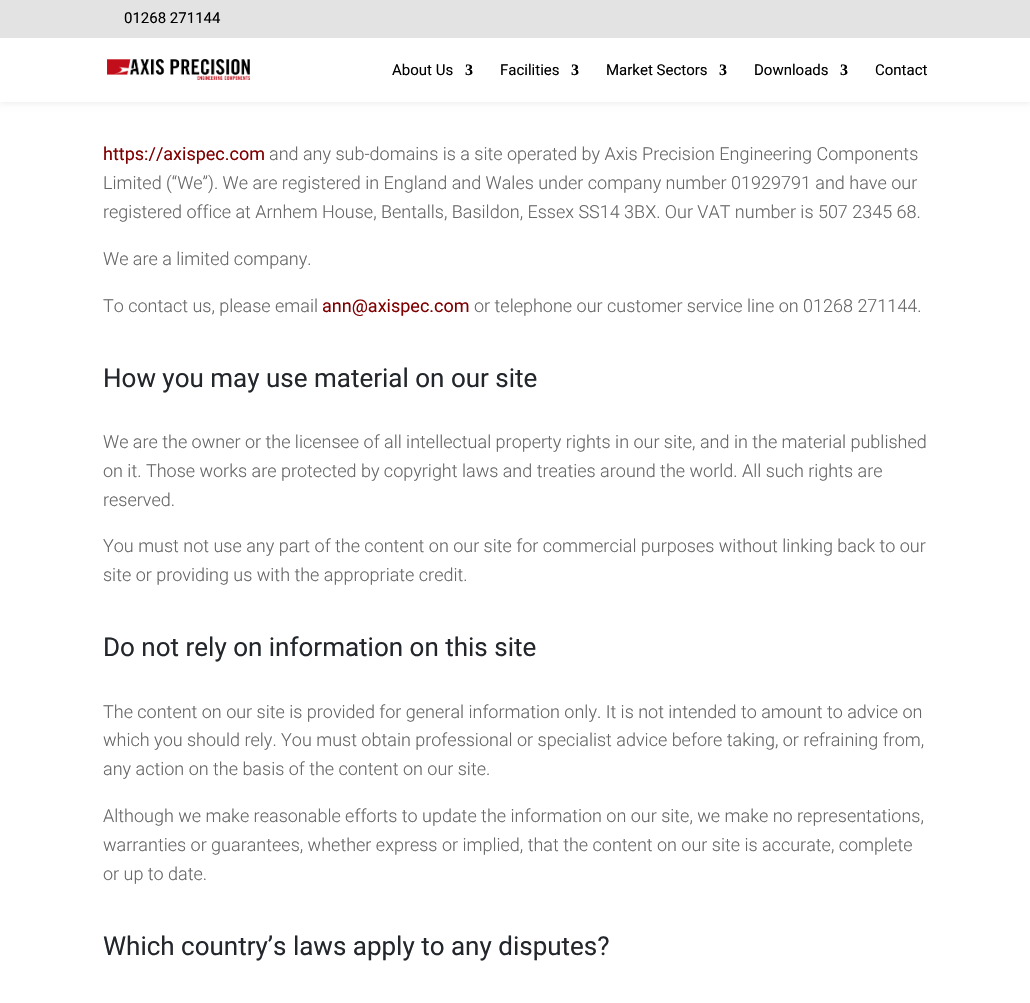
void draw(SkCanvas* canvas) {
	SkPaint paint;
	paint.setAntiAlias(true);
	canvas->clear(0xffffffff);
	paint.setColor(0x1a000000);
	paint.setMaskFilter(SkMaskFilter::MakeBlur(kNormal_SkBlurStyle, 3.5));
	canvas->drawRect(SkRect::MakeXYWH(0, 38, 1030, 64), paint);
	paint.setMaskFilter(nullptr);
	paint.setColor(0xffe3e3e3);
	canvas->drawRect(SkRect::MakeXYWH(0, 0, 1030, 38), paint);
	SkFont f1(fontMgr->matchFamilyStyle("Roboto", SkFontStyle::Normal()), 15);
	f1.setSubpixel(true);
	paint.setColor(0xff000000);
	canvas->drawString("01268 271144", 124, 23, f1, paint);
	paint.setColor(0xffffffff);
	canvas->drawRect(SkRect::MakeXYWH(0, 38, 1030, 64), paint);
	canvas->drawImageRect(SkImages::DeferredFromEncodedData(SkData::MakeFromFileName("img1.png")), SkRect::MakeXYWH(107, 59, 143, 21), SkSamplingOptions());
	paint.setColor(0xff000000);
	canvas->drawString("About Us", 392, 75, f1, paint);
	SkFont f2(fontMgr->matchFamilyStyle("Liberation Serif", SkFontStyle::Bold()), 16);
	f2.setSubpixel(true);
	canvas->drawString("3", 465, 75, f2, paint);
	canvas->drawString("Facilities", 500, 75, f1, paint);
	canvas->drawString("3", 571, 75, f2, paint);
	canvas->drawString("Market Sectors", 606, 75, f1, paint);
	canvas->drawString("3", 719, 75, f2, paint);
	canvas->drawString("Downloads", 754, 75, f1, paint);
	canvas->drawString("3", 840, 75, f2, paint);
	canvas->drawString("Contact", 875, 75, f1, paint);
	SkFont f3(fontMgr->matchFamilyStyle("Roboto", SkFontStyle::Normal()), 18);
	f3.setSubpixel(true);
	paint.setColor(0xff800001);
	canvas->drawString("https://axispec.com", 103, 160, f3, paint);
	SkFont f4(fontMgr->matchFamilyStyle("Roboto", SkFontStyle(300, SkFontStyle::kNormal_Width, SkFontStyle::kUpright_Slant)), 18);
	f4.setSubpixel(true);
	paint.setColor(0xff666666);
	canvas->drawString("and any sub-domains is a site operated by Axis Precision Engineering Components", 269, 160, f4, paint);
	canvas->drawString("Limited (“We”). We are registered in England and Wales under company number 01929791 and have our", 103, 189, f4, paint);
	canvas->drawString("registered office at Arnhem House, Bentalls, Basildon, Essex SS14 3BX. Our VAT number is 507 2345 68.", 103, 218, f4, paint);
	canvas->drawString("We are a limited company.", 103, 265, f4, paint);
	canvas->drawString("To contact us, please email", 103, 312, f4, paint);
	paint.setColor(0xff800001);
	canvas->drawString("ann@axispec.com", 322, 312, f3, paint);
	paint.setColor(0xff666666);
	canvas->drawString("or telephone our customer service line on 01268 271144.", 474, 312, f4, paint);
	SkFont f5(fontMgr->matchFamilyStyle("Roboto", SkFontStyle::Normal()), 26);
	f5.setSubpixel(true);
	paint.setColor(0xff23272c);
	canvas->drawString("How you may use material on our site", 103, 387, f5, paint);
	paint.setColor(0xff666666);
	canvas->drawString("We are the owner or the licensee of all intellectual property rights in our site, and in the material published", 103, 448, f4, paint);
	canvas->drawString("on it. Those works are protected by copyright laws and treaties around the world. All such rights are", 103, 477, f4, paint);
	canvas->drawString("reserved.", 103, 506, f4, paint);
	canvas->drawString("You must not use any part of the content on our site for commercial purposes without linking back to our", 103, 552, f4, paint);
	canvas->drawString("site or providing us with the appropriate credit.", 103, 581, f4, paint);
	paint.setColor(0xff23272c);
	canvas->drawString("Do not rely on information on this site", 103, 656, f5, paint);
	paint.setColor(0xff666666);
	canvas->drawString("The content on our site is provided for general information only. It is not intended to amount to advice on", 103, 718, f4, paint);
	canvas->drawString("which you should rely. You must obtain professional or specialist advice before taking, or refraining from,", 103, 746, f4, paint);
	canvas->drawString("any action on the basis of the content on our site.", 103, 775, f4, paint);
	canvas->drawString("Although we make reasonable efforts to update the information on our site, we make no representations,", 103, 822, f4, paint);
	canvas->drawString("warranties or guarantees, whether express or implied, that the content on our site is accurate, complete", 103, 851, f4, paint);
	canvas->drawString("or up to date.", 103, 880, f4, paint);
	paint.setColor(0xff23272c);
	canvas->drawString("Which country’s laws apply to any disputes?", 103, 955, f5, paint);
}
